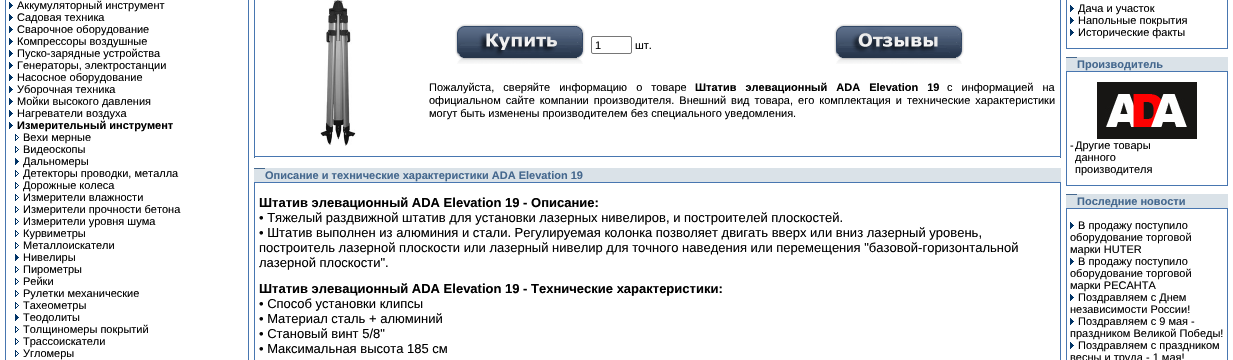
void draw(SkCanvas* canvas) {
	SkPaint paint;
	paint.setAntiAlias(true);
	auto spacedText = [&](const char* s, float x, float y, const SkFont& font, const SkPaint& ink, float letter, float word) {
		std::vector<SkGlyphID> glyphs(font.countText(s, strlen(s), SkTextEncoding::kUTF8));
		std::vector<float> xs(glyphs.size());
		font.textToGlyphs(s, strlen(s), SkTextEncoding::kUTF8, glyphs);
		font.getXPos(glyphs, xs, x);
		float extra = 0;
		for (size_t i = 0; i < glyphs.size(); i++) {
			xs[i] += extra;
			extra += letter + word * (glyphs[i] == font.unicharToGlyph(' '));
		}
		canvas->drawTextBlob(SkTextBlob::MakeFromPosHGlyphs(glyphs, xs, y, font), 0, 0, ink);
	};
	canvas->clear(0xffffffff);
	paint.setColor(0xff4876b0);
	canvas->drawRect(SkRect::MakeXYWH(5, 0, 244, 360), paint);
	paint.setColor(0xffffffff);
	canvas->drawRect(SkRect::MakeXYWH(6, 0, 242, 360), paint);
	canvas->drawImageRect(SkImages::DeferredFromEncodedData(SkData::MakeFromFileName("img1.png")), SkRect::MakeXYWH(9, 2, 4, 7), SkSamplingOptions());
	SkFont f1(fontMgr->matchFamilyStyle("Liberation Sans", SkFontStyle::Normal()), 11);
	f1.setSubpixel(true);
	paint.setColor(0xff000000);
	canvas->drawString("Аккумуляторный инструмент", 17, 9, f1, paint);
	canvas->drawImageRect(SkImages::DeferredFromEncodedData(SkData::MakeFromFileName("img1.png")), SkRect::MakeXYWH(9, 14, 4, 7), SkSamplingOptions());
	canvas->drawString("Садовая техника", 17, 21, f1, paint);
	canvas->drawImageRect(SkImages::DeferredFromEncodedData(SkData::MakeFromFileName("img1.png")), SkRect::MakeXYWH(9, 26, 4, 7), SkSamplingOptions());
	canvas->drawString("Сварочное оборудование", 17, 33, f1, paint);
	canvas->drawImageRect(SkImages::DeferredFromEncodedData(SkData::MakeFromFileName("img1.png")), SkRect::MakeXYWH(9, 38, 4, 7), SkSamplingOptions());
	canvas->drawString("Компрессоры воздушные", 17, 45, f1, paint);
	canvas->drawImageRect(SkImages::DeferredFromEncodedData(SkData::MakeFromFileName("img1.png")), SkRect::MakeXYWH(9, 50, 4, 7), SkSamplingOptions());
	canvas->drawString("Пуско-зарядные устройства", 17, 57, f1, paint);
	canvas->drawImageRect(SkImages::DeferredFromEncodedData(SkData::MakeFromFileName("img1.png")), SkRect::MakeXYWH(9, 62, 4, 7), SkSamplingOptions());
	canvas->drawString("Генераторы, электростанции", 17, 69, f1, paint);
	canvas->drawImageRect(SkImages::DeferredFromEncodedData(SkData::MakeFromFileName("img1.png")), SkRect::MakeXYWH(9, 74, 4, 7), SkSamplingOptions());
	canvas->drawString("Насосное оборудование", 17, 81, f1, paint);
	canvas->drawImageRect(SkImages::DeferredFromEncodedData(SkData::MakeFromFileName("img1.png")), SkRect::MakeXYWH(9, 86, 4, 7), SkSamplingOptions());
	canvas->drawString("Уборочная техника", 17, 93, f1, paint);
	canvas->drawImageRect(SkImages::DeferredFromEncodedData(SkData::MakeFromFileName("img1.png")), SkRect::MakeXYWH(9, 98, 4, 7), SkSamplingOptions());
	canvas->drawString("Мойки высокого давления", 17, 105, f1, paint);
	canvas->drawImageRect(SkImages::DeferredFromEncodedData(SkData::MakeFromFileName("img1.png")), SkRect::MakeXYWH(9, 110, 4, 7), SkSamplingOptions());
	canvas->drawString("Нагреватели воздуха", 17, 117, f1, paint);
	canvas->drawImageRect(SkImages::DeferredFromEncodedData(SkData::MakeFromFileName("img1.png")), SkRect::MakeXYWH(9, 122, 4, 7), SkSamplingOptions());
	SkFont f2(fontMgr->matchFamilyStyle("Liberation Sans", SkFontStyle::Bold()), 11);
	f2.setSubpixel(true);
	canvas->drawString("Измерительный инструмент", 17, 129, f2, paint);
	canvas->drawImageRect(SkImages::DeferredFromEncodedData(SkData::MakeFromFileName("img2.png")), SkRect::MakeXYWH(15, 134, 4, 7), SkSamplingOptions());
	canvas->drawString("Вехи мерные", 23, 141, f1, paint);
	canvas->drawImageRect(SkImages::DeferredFromEncodedData(SkData::MakeFromFileName("img2.png")), SkRect::MakeXYWH(15, 146, 4, 7), SkSamplingOptions());
	canvas->drawString("Видеоскопы", 23, 153, f1, paint);
	canvas->drawImageRect(SkImages::DeferredFromEncodedData(SkData::MakeFromFileName("img1.png")), SkRect::MakeXYWH(15, 158, 4, 7), SkSamplingOptions());
	canvas->drawString("Дальномеры", 23, 165, f1, paint);
	canvas->drawImageRect(SkImages::DeferredFromEncodedData(SkData::MakeFromFileName("img2.png")), SkRect::MakeXYWH(15, 170, 4, 7), SkSamplingOptions());
	canvas->drawString("Детекторы проводки, металла", 23, 177, f1, paint);
	canvas->drawImageRect(SkImages::DeferredFromEncodedData(SkData::MakeFromFileName("img2.png")), SkRect::MakeXYWH(15, 182, 4, 7), SkSamplingOptions());
	canvas->drawString("Дорожные колеса", 23, 189, f1, paint);
	canvas->drawImageRect(SkImages::DeferredFromEncodedData(SkData::MakeFromFileName("img2.png")), SkRect::MakeXYWH(15, 194, 4, 7), SkSamplingOptions());
	canvas->drawString("Измерители влажности", 23, 201, f1, paint);
	canvas->drawImageRect(SkImages::DeferredFromEncodedData(SkData::MakeFromFileName("img2.png")), SkRect::MakeXYWH(15, 206, 4, 7), SkSamplingOptions());
	canvas->drawString("Измерители прочности бетона", 23, 213, f1, paint);
	canvas->drawImageRect(SkImages::DeferredFromEncodedData(SkData::MakeFromFileName("img2.png")), SkRect::MakeXYWH(15, 218, 4, 7), SkSamplingOptions());
	canvas->drawString("Измерители уровня шума", 23, 225, f1, paint);
	canvas->drawImageRect(SkImages::DeferredFromEncodedData(SkData::MakeFromFileName("img2.png")), SkRect::MakeXYWH(15, 230, 4, 7), SkSamplingOptions());
	canvas->drawString("Курвиметры", 23, 237, f1, paint);
	canvas->drawImageRect(SkImages::DeferredFromEncodedData(SkData::MakeFromFileName("img2.png")), SkRect::MakeXYWH(15, 242, 4, 7), SkSamplingOptions());
	canvas->drawString("Металлоискатели", 23, 249, f1, paint);
	canvas->drawImageRect(SkImages::DeferredFromEncodedData(SkData::MakeFromFileName("img1.png")), SkRect::MakeXYWH(15, 254, 4, 7), SkSamplingOptions());
	canvas->drawString("Нивелиры", 23, 261, f1, paint);
	canvas->drawImageRect(SkImages::DeferredFromEncodedData(SkData::MakeFromFileName("img2.png")), SkRect::MakeXYWH(15, 266, 4, 7), SkSamplingOptions());
	canvas->drawString("Пирометры", 23, 273, f1, paint);
	canvas->drawImageRect(SkImages::DeferredFromEncodedData(SkData::MakeFromFileName("img2.png")), SkRect::MakeXYWH(15, 278, 4, 7), SkSamplingOptions());
	canvas->drawString("Рейки", 23, 285, f1, paint);
	canvas->drawImageRect(SkImages::DeferredFromEncodedData(SkData::MakeFromFileName("img2.png")), SkRect::MakeXYWH(15, 290, 4, 7), SkSamplingOptions());
	canvas->drawString("Рулетки механические", 23, 297, f1, paint);
	canvas->drawImageRect(SkImages::DeferredFromEncodedData(SkData::MakeFromFileName("img2.png")), SkRect::MakeXYWH(15, 302, 4, 7), SkSamplingOptions());
	canvas->drawString("Тахеометры", 23, 309, f1, paint);
	canvas->drawImageRect(SkImages::DeferredFromEncodedData(SkData::MakeFromFileName("img1.png")), SkRect::MakeXYWH(15, 314, 4, 7), SkSamplingOptions());
	canvas->drawString("Теодолиты", 23, 321, f1, paint);
	canvas->drawImageRect(SkImages::DeferredFromEncodedData(SkData::MakeFromFileName("img2.png")), SkRect::MakeXYWH(15, 326, 4, 7), SkSamplingOptions());
	canvas->drawString("Толщиномеры покрытий", 23, 333, f1, paint);
	canvas->drawImageRect(SkImages::DeferredFromEncodedData(SkData::MakeFromFileName("img2.png")), SkRect::MakeXYWH(15, 338, 4, 7), SkSamplingOptions());
	canvas->drawString("Трассоискатели", 23, 345, f1, paint);
	canvas->drawImageRect(SkImages::DeferredFromEncodedData(SkData::MakeFromFileName("img2.png")), SkRect::MakeXYWH(15, 350, 4, 7), SkSamplingOptions());
	canvas->drawString("Угломеры", 23, 357, f1, paint);
	paint.setColor(0xff4876b0);
	canvas->drawRect(SkRect::MakeXYWH(254, 0, 807, 157), paint);
	paint.setColor(0xffffffff);
	canvas->drawRect(SkRect::MakeXYWH(255, 0, 805, 156), paint);
	canvas->drawImageRect(SkImages::DeferredFromEncodedData(SkData::MakeFromFileName("img3.png")), SkRect::MakeXYWH(320, 0, 36, 146), SkSamplingOptions());
	canvas->drawImageRect(SkImages::DeferredFromEncodedData(SkData::MakeFromFileName("img4.png")), SkRect::MakeXYWH(455, 24, 130, 40), SkSamplingOptions());
	paint.setStroke(true);
	paint.setStrokeWidth(1);
	paint.setColor(0xff767676);
	canvas->drawRoundRect(SkRect::MakeXYWH(591.5, 36.5, 40, 17), 1.5, 1.5, paint);
	paint.setStroke(false);
	paint.setColor(0xff000000);
	canvas->drawString("1", 595, 49, f1, paint);
	canvas->drawString("шт.", 635, 49, f1, paint);
	canvas->drawImageRect(SkImages::DeferredFromEncodedData(SkData::MakeFromFileName("img5.png")), SkRect::MakeXYWH(834, 24, 130, 40), SkSamplingOptions());
	spacedText("Пожалуйста, сверяйте информацию о товаре", 429, 91, f1, paint, 0, 6);
	spacedText("Штатив элевационный ADA Elevation 19", 695, 91, f2, paint, 0, 6);
	spacedText("с информацией на", 947, 91, f1, paint, 0, 6);
	spacedText("официальном сайте компании производителя. Внешний вид товара, его комплектация и технические характеристики", 429, 104, f1, paint, 0, 2);
	canvas->drawString("могут быть изменены производителем без специального уведомления.", 429, 117, f1, paint);
	paint.setColor(0xff45688e);
	canvas->drawRect(SkRect::MakeXYWH(254, 157, 1, 1), paint);
	canvas->drawRect(SkRect::MakeXYWH(1060, 157, 1, 1), paint);
	paint.setColor(0xffdae2e8);
	canvas->drawRect(SkRect::MakeXYWH(254, 169, 11, 13), paint);
	paint.setColor(0xff45688e);
	canvas->drawRect(SkRect::MakeXYWH(254, 168, 11, 1), paint);
	paint.setColor(0xffdae2e8);
	canvas->drawRect(SkRect::MakeXYWH(265, 168, 796, 14), paint);
	paint.setColor(0xff45688e);
	canvas->drawString("Описание и технические характеристики ADA Elevation 19", 265, 179, f2, paint);
	paint.setColor(0xff4876b0);
	canvas->drawRect(SkRect::MakeXYWH(254, 182, 807, 178), paint);
	paint.setColor(0xffffffff);
	canvas->drawRect(SkRect::MakeXYWH(255, 183, 805, 177), paint);
	SkFont f3(fontMgr->matchFamilyStyle("Liberation Sans", SkFontStyle::Bold()), 13);
	f3.setSubpixel(true);
	paint.setColor(0xff000000);
	canvas->drawString("Штатив элевационный ADA Elevation 19 - Описание:", 259, 207, f3, paint);
	SkFont f4(fontMgr->matchFamilyStyle("Liberation Sans", SkFontStyle::Normal()), 13);
	f4.setSubpixel(true);
	canvas->drawString("• Тяжелый раздвижной штатив для установки лазерных нивелиров, и построителей плоскостей.", 259, 222, f4, paint);
	canvas->drawString("• Штатив выполнен из алюминия и стали. Регулируемая колонка позволяет двигать вверх или вниз лазерный уровень,", 259, 237, f4, paint);
	canvas->drawString("построитель лазерной плоскости или лазерный нивелир для точного наведения или перемещения \"базовой-горизонтальной", 259, 252, f4, paint);
	canvas->drawString("лазерной плоскости\".", 259, 267, f4, paint);
	canvas->drawString("Штатив элевационный ADA Elevation 19 - Технические характеристики:", 259, 293, f3, paint);
	canvas->drawString("• Способ установки клипсы", 259, 308, f4, paint);
	canvas->drawString("• Материал сталь + алюминий", 259, 323, f4, paint);
	canvas->drawString("• Становый винт 5/8\"", 259, 338, f4, paint);
	canvas->drawString("• Максимальная высота 185 см", 259, 353, f4, paint);
	paint.setColor(0xff4876b0);
	canvas->drawRect(SkRect::MakeXYWH(1066, 0, 162, 49), paint);
	paint.setColor(0xffffffff);
	canvas->drawRect(SkRect::MakeXYWH(1067, 0, 160, 48), paint);
	canvas->drawImageRect(SkImages::DeferredFromEncodedData(SkData::MakeFromFileName("img1.png")), SkRect::MakeXYWH(1070, 5, 4, 7), SkSamplingOptions());
	paint.setColor(0xff000000);
	canvas->drawString("Дача и участок", 1078, 12, f1, paint);
	canvas->drawImageRect(SkImages::DeferredFromEncodedData(SkData::MakeFromFileName("img1.png")), SkRect::MakeXYWH(1070, 17, 4, 7), SkSamplingOptions());
	canvas->drawString("Напольные покрытия", 1078, 24, f1, paint);
	canvas->drawImageRect(SkImages::DeferredFromEncodedData(SkData::MakeFromFileName("img1.png")), SkRect::MakeXYWH(1070, 29, 4, 7), SkSamplingOptions());
	canvas->drawString("Исторические факты", 1078, 36, f1, paint);
	paint.setColor(0xffdae2e8);
	canvas->drawRect(SkRect::MakeXYWH(1066, 58, 11, 13), paint);
	paint.setColor(0xff45688e);
	canvas->drawRect(SkRect::MakeXYWH(1066, 57, 11, 1), paint);
	paint.setColor(0xffdae2e8);
	canvas->drawRect(SkRect::MakeXYWH(1077, 57, 151, 14), paint);
	paint.setColor(0xff45688e);
	canvas->drawString("Производитель", 1077, 68, f2, paint);
	paint.setColor(0xff4876b0);
	canvas->drawRect(SkRect::MakeXYWH(1066, 71, 162, 115), paint);
	paint.setColor(0xffffffff);
	canvas->drawRect(SkRect::MakeXYWH(1067, 72, 160, 113), paint);
	canvas->drawImageRect(SkImages::DeferredFromEncodedData(SkData::MakeFromFileName("img6.png")), SkRect::MakeXYWH(1097, 82, 100, 57), SkSamplingOptions());
	paint.setColor(0xff000000);
	canvas->drawString("-", 1070, 149, f1, paint);
	canvas->drawString("Другие товары", 1075, 149, f1, paint);
	canvas->drawString("данного", 1075, 161, f1, paint);
	canvas->drawString("производителя", 1075, 173, f1, paint);
	paint.setColor(0xffdae2e8);
	canvas->drawRect(SkRect::MakeXYWH(1066, 195, 11, 13), paint);
	paint.setColor(0xff45688e);
	canvas->drawRect(SkRect::MakeXYWH(1066, 194, 11, 1), paint);
	paint.setColor(0xffdae2e8);
	canvas->drawRect(SkRect::MakeXYWH(1077, 194, 151, 14), paint);
	paint.setColor(0xff45688e);
	canvas->drawString("Последние новости", 1077, 205, f2, paint);
	paint.setColor(0xff4876b0);
	canvas->drawRect(SkRect::MakeXYWH(1066, 208, 162, 152), paint);
	paint.setColor(0xffffffff);
	canvas->drawRect(SkRect::MakeXYWH(1067, 209, 160, 151), paint);
	canvas->drawImageRect(SkImages::DeferredFromEncodedData(SkData::MakeFromFileName("img1.png")), SkRect::MakeXYWH(1070, 222, 4, 7), SkSamplingOptions());
	paint.setColor(0xff000000);
	canvas->drawString("В продажу поступило", 1078, 229, f1, paint);
	canvas->drawString("оборудование торговой", 1070, 241, f1, paint);
	canvas->drawString("марки HUTER", 1070, 253, f1, paint);
	canvas->drawImageRect(SkImages::DeferredFromEncodedData(SkData::MakeFromFileName("img1.png")), SkRect::MakeXYWH(1070, 258, 4, 7), SkSamplingOptions());
	canvas->drawString("В продажу поступило", 1078, 265, f1, paint);
	canvas->drawString("оборудование торговой", 1070, 277, f1, paint);
	canvas->drawString("марки РЕСАНТА", 1070, 289, f1, paint);
	canvas->drawImageRect(SkImages::DeferredFromEncodedData(SkData::MakeFromFileName("img1.png")), SkRect::MakeXYWH(1070, 294, 4, 7), SkSamplingOptions());
	canvas->drawString("Поздравляем с Днем", 1078, 301, f1, paint);
	canvas->drawString("независимости России!", 1070, 313, f1, paint);
	canvas->drawImageRect(SkImages::DeferredFromEncodedData(SkData::MakeFromFileName("img1.png")), SkRect::MakeXYWH(1070, 318, 4, 7), SkSamplingOptions());
	canvas->drawString("Поздравляем с 9 мая -", 1078, 325, f1, paint);
	canvas->drawString("праздником Великой Победы!", 1070, 337, f1, paint);
	canvas->drawImageRect(SkImages::DeferredFromEncodedData(SkData::MakeFromFileName("img1.png")), SkRect::MakeXYWH(1070, 342, 4, 7), SkSamplingOptions());
	canvas->drawString("Поздравляем с праздником", 1078, 349, f1, paint);
	canvas->drawString("весны и труда - 1 мая!", 1070, 361, f1, paint);
}
